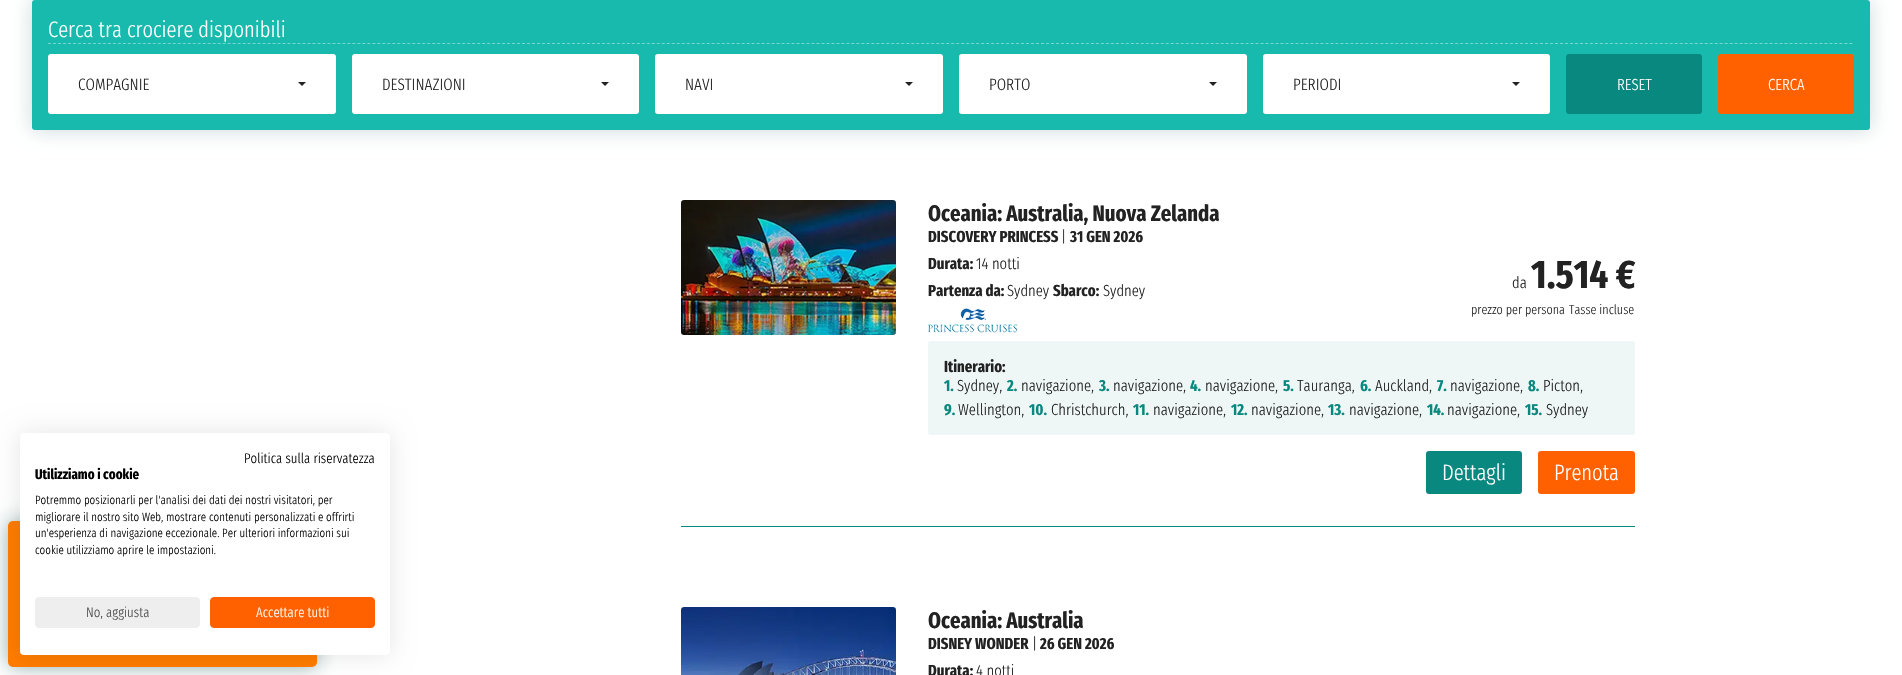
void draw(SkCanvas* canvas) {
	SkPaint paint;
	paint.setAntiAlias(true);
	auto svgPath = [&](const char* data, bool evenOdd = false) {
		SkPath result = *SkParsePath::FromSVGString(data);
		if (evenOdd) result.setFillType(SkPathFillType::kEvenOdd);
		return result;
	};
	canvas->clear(0xffffffff);
	paint.setColor(0x33003c3c);
	paint.setMaskFilter(SkMaskFilter::MakeBlur(kNormal_SkBlurStyle, 10));
	canvas->drawRoundRect(SkRect::MakeXYWH(32, 0, 1838, 130), 3, 3, paint);
	paint.setMaskFilter(nullptr);
	paint.setColor(0xff18baad);
	canvas->drawRoundRect(SkRect::MakeXYWH(32, 0, 1838, 130), 3, 3, paint);
	paint.setStroke(true);
	paint.setStrokeWidth(1);
	paint.setColor(0xff76d7cf);
	paint.setPathEffect(SkDashPathEffect::Make({{3, 1.99f}}, 0));
	canvas->drawPath(svgPath("M48 43.5H1854"), paint);
	paint.setPathEffect(nullptr);
	SkFont f1(fontMgr->matchFamilyStyle("Fira Sans Extra Condensed", SkFontStyle(300, SkFontStyle::kNormal_Width, SkFontStyle::kUpright_Slant)), 22.4);
	f1.setSubpixel(true);
	paint.setStroke(false);
	paint.setColor(0xffffffff);
	canvas->drawString("Cerca tra crociere disponibili", 48, 37, f1, paint);
	canvas->drawRoundRect(SkRect::MakeXYWH(48, 54, 288, 60), 3, 3, paint);
	SkFont f2(fontMgr->matchFamilyStyle("Fira Sans Extra Condensed", SkFontStyle(300, SkFontStyle::kNormal_Width, SkFontStyle::kUpright_Slant)), 16.5);
	f2.setSubpixel(true);
	paint.setColor(0xff222222);
	canvas->drawString("COMPAGNIE", 78, 90, f2, paint);
	canvas->drawPath(svgPath("M298 82H306L302 86Z"), paint);
	paint.setColor(0xffffffff);
	canvas->drawRoundRect(SkRect::MakeXYWH(352, 54, 287, 60), 3, 3, paint);
	paint.setColor(0xff222222);
	canvas->drawString("DESTINAZIONI", 382, 90, f2, paint);
	canvas->drawPath(svgPath("M601 82H609L605 86Z"), paint);
	paint.setColor(0xffffffff);
	canvas->drawRoundRect(SkRect::MakeXYWH(655, 54, 288, 60), 3, 3, paint);
	paint.setColor(0xff222222);
	canvas->drawString("NAVI", 685, 90, f2, paint);
	canvas->drawPath(svgPath("M905 82H913L909 86Z"), paint);
	paint.setColor(0xffffffff);
	canvas->drawRoundRect(SkRect::MakeXYWH(959, 54, 288, 60), 3, 3, paint);
	paint.setColor(0xff222222);
	canvas->drawString("PORTO", 989, 90, f2, paint);
	canvas->drawPath(svgPath("M1209 82H1217L1213 86Z"), paint);
	paint.setColor(0xffffffff);
	canvas->drawRoundRect(SkRect::MakeXYWH(1263, 54, 287, 60), 3, 3, paint);
	paint.setColor(0xff222222);
	canvas->drawString("PERIODI", 1293, 90, f2, paint);
	canvas->drawPath(svgPath("M1512 82H1520L1516 86Z"), paint);
	paint.setColor(0xff08887e);
	canvas->drawRoundRect(SkRect::MakeXYWH(1566, 54, 136, 60), 3, 3, paint);
	SkFont f3(fontMgr->matchFamilyStyle("Fira Sans Extra Condensed", SkFontStyle(300, SkFontStyle::kNormal_Width, SkFontStyle::kUpright_Slant)), 16);
	f3.setSubpixel(true);
	paint.setColor(0xffffffff);
	canvas->drawString("RESET", 1617, 90, f3, paint);
	paint.setColor(0xffff6000);
	canvas->drawRoundRect(SkRect::MakeXYWH(1718, 54, 136, 60), 3, 3, paint);
	paint.setColor(0xffffffff);
	canvas->drawString("CERCA", 1768, 90, f3, paint);
	paint.setColor(0xff08887e);
	canvas->drawRect(SkRect::MakeXYWH(681, 526, 954, 1), paint);
	canvas->drawImageRect(SkImages::DeferredFromEncodedData(SkData::MakeFromFileName("img1.png")), SkRect::MakeXYWH(681, 200, 215, 135), SkSamplingOptions());
	SkFont f4(fontMgr->matchFamilyStyle("Fira Sans Extra Condensed", SkFontStyle::Bold()), 22.4);
	f4.setSubpixel(true);
	paint.setColor(0xff222222);
	canvas->drawString("Oceania: Australia, Nuova Zelanda", 928, 221, f4, paint);
	SkFont f5(fontMgr->matchFamilyStyle("Fira Sans Extra Condensed", SkFontStyle::Bold()), 16);
	f5.setSubpixel(true);
	canvas->drawString("DISCOVERY PRINCESS", 928, 242, f5, paint);
	canvas->drawString("|", 1061, 242, f3, paint);
	canvas->drawString("31 GEN 2026", 1070, 242, f5, paint);
	canvas->drawString("Durata:", 928, 269, f5, paint);
	canvas->drawString("14 notti", 976, 269, f3, paint);
	canvas->drawString("Partenza da:", 928, 296, f5, paint);
	canvas->drawString("Sydney", 1007, 296, f3, paint);
	canvas->drawString("Sbarco:", 1053, 296, f5, paint);
	canvas->drawString("Sydney", 1103, 296, f3, paint);
	canvas->drawImageRect(SkImages::DeferredFromEncodedData(SkData::MakeFromFileName("img2.png")), SkRect::MakeXYWH(928, 308, 89, 25), SkSamplingOptions());
	canvas->drawString("da", 1512, 288, f3, paint);
	SkFont f6(fontMgr->matchFamilyStyle("Fira Sans Extra Condensed", SkFontStyle::Bold()), 40);
	f6.setSubpixel(true);
	canvas->drawString("1.514 €", 1531, 288, f6, paint);
	SkFont f7(fontMgr->matchFamilyStyle("Fira Sans Extra Condensed", SkFontStyle(300, SkFontStyle::kNormal_Width, SkFontStyle::kUpright_Slant)), 13.25);
	f7.setSubpixel(true);
	canvas->drawString("prezzo per persona", 1471, 314, f7, paint);
	canvas->drawString("Tasse incluse", 1569, 314, f7, paint);
	paint.setColor(0xffeef7f6);
	canvas->drawRoundRect(SkRect::MakeXYWH(928, 341, 707, 94), 3, 3, paint);
	paint.setColor(0xff222222);
	canvas->drawString("Itinerario:", 944, 372, f5, paint);
	paint.setColor(0xff08887e);
	canvas->drawString("1.", 944, 391, f5, paint);
	paint.setColor(0xff222222);
	canvas->drawString("Sydney,", 957, 391, f3, paint);
	paint.setColor(0xff08887e);
	canvas->drawString("2.", 1007, 391, f5, paint);
	paint.setColor(0xff222222);
	canvas->drawString("navigazione,", 1021, 391, f3, paint);
	paint.setColor(0xff08887e);
	canvas->drawString("3.", 1099, 391, f5, paint);
	paint.setColor(0xff222222);
	canvas->drawString("navigazione,", 1113, 391, f3, paint);
	paint.setColor(0xff08887e);
	canvas->drawString("4.", 1190, 391, f5, paint);
	paint.setColor(0xff222222);
	canvas->drawString("navigazione,", 1205, 391, f3, paint);
	paint.setColor(0xff08887e);
	canvas->drawString("5.", 1283, 391, f5, paint);
	paint.setColor(0xff222222);
	canvas->drawString("Tauranga,", 1297, 391, f3, paint);
	paint.setColor(0xff08887e);
	canvas->drawString("6.", 1360, 391, f5, paint);
	paint.setColor(0xff222222);
	canvas->drawString("Auckland,", 1375, 391, f3, paint);
	paint.setColor(0xff08887e);
	canvas->drawString("7.", 1437, 391, f5, paint);
	paint.setColor(0xff222222);
	canvas->drawString("navigazione,", 1450, 391, f3, paint);
	paint.setColor(0xff08887e);
	canvas->drawString("8.", 1528, 391, f5, paint);
	paint.setColor(0xff222222);
	canvas->drawString("Picton,", 1543, 391, f3, paint);
	paint.setColor(0xff08887e);
	canvas->drawString("9.", 944, 415, f5, paint);
	paint.setColor(0xff222222);
	canvas->drawString("Wellington,", 958, 415, f3, paint);
	paint.setColor(0xff08887e);
	canvas->drawString("10.", 1029, 415, f5, paint);
	paint.setColor(0xff222222);
	canvas->drawString("Christchurch,", 1051, 415, f3, paint);
	paint.setColor(0xff08887e);
	canvas->drawString("11.", 1133, 415, f5, paint);
	paint.setColor(0xff222222);
	canvas->drawString("navigazione,", 1153, 415, f3, paint);
	paint.setColor(0xff08887e);
	canvas->drawString("12.", 1231, 415, f5, paint);
	paint.setColor(0xff222222);
	canvas->drawString("navigazione,", 1251, 415, f3, paint);
	paint.setColor(0xff08887e);
	canvas->drawString("13.", 1328, 415, f5, paint);
	paint.setColor(0xff222222);
	canvas->drawString("navigazione,", 1349, 415, f3, paint);
	paint.setColor(0xff08887e);
	canvas->drawString("14.", 1427, 415, f5, paint);
	paint.setColor(0xff222222);
	canvas->drawString("navigazione,", 1447, 415, f3, paint);
	paint.setColor(0xff08887e);
	canvas->drawString("15.", 1525, 415, f5, paint);
	paint.setColor(0xff222222);
	canvas->drawString("Sydney", 1546, 415, f3, paint);
	paint.setColor(0xff08887e);
	canvas->drawRoundRect(SkRect::MakeXYWH(1426, 451, 96, 43), 3, 3, paint);
	paint.setColor(0xffffffff);
	canvas->drawString("Dettagli", 1442, 480, f1, paint);
	paint.setColor(0xffff6000);
	canvas->drawRoundRect(SkRect::MakeXYWH(1538, 451, 97, 43), 3, 3, paint);
	paint.setColor(0xffffffff);
	canvas->drawString("Prenota", 1554, 480, f1, paint);
	canvas->drawImageRect(SkImages::DeferredFromEncodedData(SkData::MakeFromFileName("img3.png")), SkRect::MakeXYWH(681, 607, 215, 68), SkSamplingOptions());
	paint.setColor(0xff222222);
	canvas->drawString("Oceania: Australia", 928, 628, f4, paint);
	canvas->drawString("DISNEY WONDER", 928, 649, f5, paint);
	canvas->drawString("|", 1032, 649, f3, paint);
	canvas->drawString("26 GEN 2026", 1040, 649, f5, paint);
	canvas->drawString("Durata:", 928, 676, f5, paint);
	canvas->drawString("4 notti", 976, 676, f3, paint);
	paint.setColor(0x66003c3c);
	paint.setMaskFilter(SkMaskFilter::MakeBlur(kNormal_SkBlurStyle, 10));
	canvas->drawRoundRect(SkRect::MakeXYWH(8, 521, 309, 146), 5, 5, paint);
	paint.setMaskFilter(nullptr);
	paint.setColor(0xffff7c00);
	canvas->drawRoundRect(SkRect::MakeXYWH(8, 521, 309, 146), 5, 5, paint);
	paint.setColor(0x1a000000);
	paint.setMaskFilter(SkMaskFilter::MakeBlur(kNormal_SkBlurStyle, 12));
	canvas->drawRoundRect(SkRect::MakeXYWH(20, 433, 370, 222), 4, 4, paint);
	paint.setMaskFilter(nullptr);
	paint.setColor(0xffffffff);
	canvas->drawRoundRect(SkRect::MakeXYWH(20, 433, 370, 222), 4, 4, paint);
	SkFont f8(fontMgr->matchFamilyStyle("Fira Sans Extra Condensed", SkFontStyle(300, SkFontStyle::kNormal_Width, SkFontStyle::kUpright_Slant)), 14);
	f8.setSubpixel(true);
	paint.setColor(0xff000000);
	canvas->drawString("Politica sulla riservatezza", 244, 463, f8, paint);
	SkFont f9(fontMgr->matchFamilyStyle("Fira Sans Extra Condensed", SkFontStyle::Bold()), 14);
	f9.setSubpixel(true);
	canvas->drawString("Utilizziamo i cookie", 35, 479, f9, paint);
	SkFont f10(fontMgr->matchFamilyStyle("Fira Sans Extra Condensed", SkFontStyle(300, SkFontStyle::kNormal_Width, SkFontStyle::kUpright_Slant)), 12);
	f10.setSubpixel(true);
	canvas->drawString("Potremmo posizionarli per l'analisi dei dati dei nostri visitatori, per", 35, 504, f10, paint);
	canvas->drawString("migliorare il nostro sito Web, mostrare contenuti personalizzati e offrirti", 35, 521, f10, paint);
	canvas->drawString("un'esperienza di navigazione eccezionale. Per ulteriori informazioni sui", 35, 537, f10, paint);
	canvas->drawString("cookie utilizziamo aprire le impostazioni.", 35, 554, f10, paint);
	paint.setColor(0xffeeeeee);
	canvas->drawRoundRect(SkRect::MakeXYWH(35.5, 597.5, 164, 30), 3.5, 3.5, paint);
	paint.setStroke(true);
	canvas->drawRoundRect(SkRect::MakeXYWH(35.5, 597.5, 164, 30), 3.5, 3.5, paint);
	paint.setStroke(false);
	paint.setColor(0xff4a4a4a);
	canvas->drawString("No, aggiusta", 86, 617, f8, paint);
	paint.setColor(0xffff6000);
	canvas->drawRoundRect(SkRect::MakeXYWH(210.5, 597.5, 164, 30), 3.5, 3.5, paint);
	paint.setStroke(true);
	canvas->drawRoundRect(SkRect::MakeXYWH(210.5, 597.5, 164, 30), 3.5, 3.5, paint);
	paint.setStroke(false);
	paint.setColor(0xffffffff);
	canvas->drawString("Accettare tutti", 256, 617, f8, paint);
}
